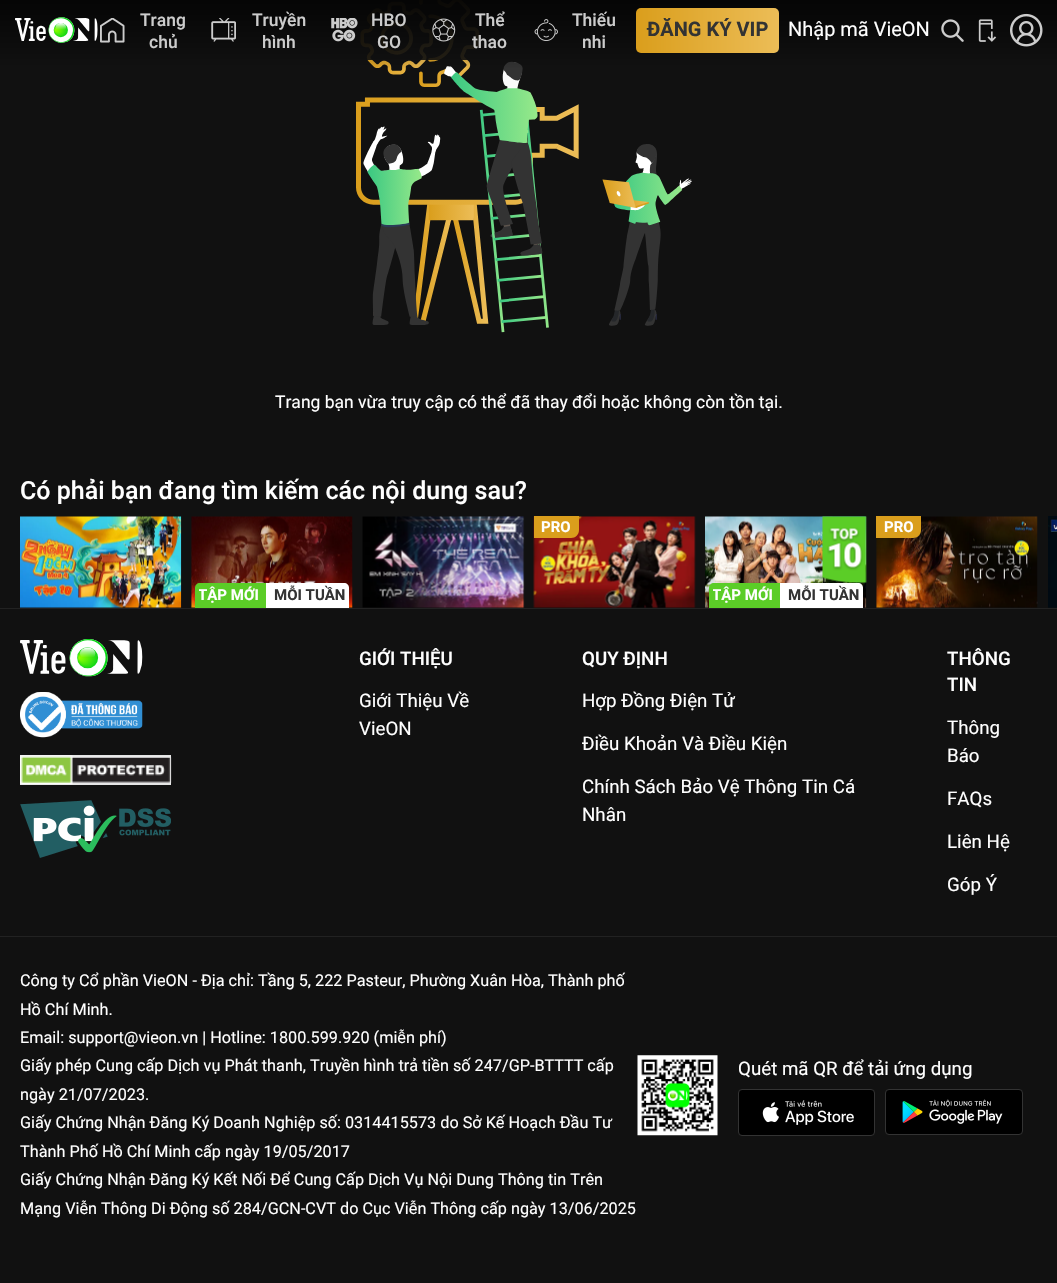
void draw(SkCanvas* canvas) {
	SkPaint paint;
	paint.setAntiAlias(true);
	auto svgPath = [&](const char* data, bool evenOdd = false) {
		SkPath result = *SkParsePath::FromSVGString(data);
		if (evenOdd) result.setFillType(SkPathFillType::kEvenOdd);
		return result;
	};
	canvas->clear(0xff111111);
	canvas->drawImageRect(SkImages::DeferredFromEncodedData(SkData::MakeFromFileName("img10.png")), SkRect::MakeXYWH(356, 0, 336, 333), SkSamplingOptions());
	paint.setColor(0xe6111111);
	canvas->drawRect(SkRect::MakeXYWH(360, 0, 120, 60), paint);
	{
		const SkColor colors[] = {0x00000000, 0xbf000000};
		const float stops[] = {0, 1};
		const SkPoint ends[] = {{529, 70}, {529, 0}};
		paint.setShader(SkGradientShader::MakeLinear(ends, colors, stops, 2, SkTileMode::kClamp));
		paint.setAlpha(255);
	}
	canvas->drawRect(SkRect::MakeXYWH(0, 0, 1057, 68), paint);
	canvas->drawImageRect(SkImages::DeferredFromEncodedData(SkData::MakeFromFileName("img1.png")), SkRect::MakeXYWH(15, 17, 83, 26), SkSamplingOptions());
	canvas->drawImageRect(SkImages::DeferredFromEncodedData(SkData::MakeFromFileName("img2.png")), SkRect::MakeXYWH(100, 18, 25, 25), SkSamplingOptions());
	SkFont f1(fontMgr->matchFamilyStyle("Roboto", SkFontStyle(500, SkFontStyle::kNormal_Width, SkFontStyle::kUpright_Slant)), 17.5);
	f1.setSubpixel(true);
	paint.setShader(nullptr);
	paint.setColor(0xffcccccc);
	canvas->drawString("Trang", 140, 26, f1, paint);
	canvas->drawString("chủ", 149, 48, f1, paint);
	canvas->drawImageRect(SkImages::DeferredFromEncodedData(SkData::MakeFromFileName("img3.png")), SkRect::MakeXYWH(211, 18, 25, 24), SkSamplingOptions());
	canvas->drawString("Truyền", 252, 26, f1, paint);
	canvas->drawString("hình", 262, 48, f1, paint);
	canvas->drawImageRect(SkImages::DeferredFromEncodedData(SkData::MakeFromFileName("img4.png")), SkRect::MakeXYWH(331, 18, 27, 24), SkSamplingOptions());
	canvas->drawString("HBO", 371, 26, f1, paint);
	canvas->drawString("GO", 377, 48, f1, paint);
	canvas->drawImageRect(SkImages::DeferredFromEncodedData(SkData::MakeFromFileName("img5.png")), SkRect::MakeXYWH(432, 18, 24, 24), SkSamplingOptions());
	canvas->drawString("Thể", 475, 26, f1, paint);
	canvas->drawString("thao", 472, 48, f1, paint);
	canvas->drawImageRect(SkImages::DeferredFromEncodedData(SkData::MakeFromFileName("img6.png")), SkRect::MakeXYWH(534, 19, 24, 22), SkSamplingOptions());
	canvas->drawString("Thiếu", 572, 26, f1, paint);
	canvas->drawString("nhi", 582, 48, f1, paint);
	{
		const SkColor colors[] = {0xffda9e1c, 0xffecbd57};
		const float stops[] = {0, 1};
		const SkPoint ends[] = {{636, 30}, {779, 30}};
		paint.setShader(SkGradientShader::MakeLinear(ends, colors, stops, 2, SkTileMode::kClamp));
		paint.setAlpha(255);
	}
	canvas->drawRoundRect(SkRect::MakeXYWH(636, 8, 143, 45), 5, 5, paint);
	SkFont f2(fontMgr->matchFamilyStyle("Roboto", SkFontStyle::Bold()), 20);
	f2.setSubpixel(true);
	paint.setShader(nullptr);
	paint.setColor(0xff333333);
	canvas->drawString("ĐĂNG KÝ VIP", 647, 36, f2, paint);
	SkFont f3(fontMgr->matchFamilyStyle("Roboto", SkFontStyle::Normal()), 20);
	f3.setSubpixel(true);
	paint.setColor(0xffffffff);
	canvas->drawString("Nhập mã VieON", 788, 36, f3, paint);
	canvas->drawImageRect(SkImages::DeferredFromEncodedData(SkData::MakeFromFileName("img7.png")), SkRect::MakeXYWH(941, 19, 23, 23), SkSamplingOptions());
	canvas->drawImageRect(SkImages::DeferredFromEncodedData(SkData::MakeFromFileName("img8.png")), SkRect::MakeXYWH(978, 19, 19, 23), SkSamplingOptions());
	canvas->drawImageRect(SkImages::DeferredFromEncodedData(SkData::MakeFromFileName("img9.png")), SkRect::MakeXYWH(1010, 13, 33, 34), SkSamplingOptions());
	SkFont f4(fontMgr->matchFamilyStyle("Roboto", SkFontStyle::Normal()), 17.5);
	f4.setSubpixel(true);
	canvas->drawString("Trang bạn vừa truy cập có thể đã thay đổi hoặc không còn tồn tại.", 275, 408, f4, paint);
	SkFont f5(fontMgr->matchFamilyStyle("Roboto", SkFontStyle(500, SkFontStyle::kNormal_Width, SkFontStyle::kUpright_Slant)), 25);
	f5.setSubpixel(true);
	canvas->drawString("Có phải bạn đang tìm kiếm các nội dung sau?", 20, 499, f5, paint);
	canvas->drawImageRect(SkImages::DeferredFromEncodedData(SkData::MakeFromFileName("img11.png")), SkRect::MakeXYWH(20, 516, 162, 92), SkSamplingOptions());
	canvas->drawImageRect(SkImages::DeferredFromEncodedData(SkData::MakeFromFileName("img12.png")), SkRect::MakeXYWH(362, 516, 163, 92), SkSamplingOptions());
	canvas->drawImageRect(SkImages::DeferredFromEncodedData(SkData::MakeFromFileName("img13.png")), SkRect::MakeXYWH(533, 516, 163, 92), SkSamplingOptions());
	paint.setColor(0xffda9e1c);
	canvas->drawPath(svgPath("M534 516H579V530C579 534.5 575.5 538 571 538H534Z"), paint);
	SkFont f6(fontMgr->matchFamilyStyle("Roboto", SkFontStyle::Bold()), 15);
	f6.setSubpixel(true);
	paint.setColor(0xffffffff);
	canvas->drawString("PRO", 541, 532, f6, paint);
	canvas->drawImageRect(SkImages::DeferredFromEncodedData(SkData::MakeFromFileName("img14.png")), SkRect::MakeXYWH(876, 516, 162, 92), SkSamplingOptions());
	paint.setColor(0xffda9e1c);
	canvas->drawPath(svgPath("M876 516H921V530C921 534.5 917.5 538 913 538H876Z"), paint);
	paint.setColor(0xffffffff);
	canvas->drawString("PRO", 884, 532, f6, paint);
	canvas->drawImageRect(SkImages::DeferredFromEncodedData(SkData::MakeFromFileName("img15.png")), SkRect::MakeXYWH(1048, 516, 9, 92), SkSamplingOptions());
	canvas->drawImageRect(SkImages::DeferredFromEncodedData(SkData::MakeFromFileName("img16.png")), SkRect::MakeXYWH(191, 516, 162, 92), SkSamplingOptions());
	paint.setColor(0xff5bcd27);
	canvas->drawPath(svgPath("M200 583H266V608H195V588C195 585 197 583 200 583Z"), paint);
	canvas->save();
	canvas->clipRect(SkRect::MakeXYWH(199, 584, 60, 22));
	paint.setColor(0xffffffff);
	canvas->drawString("TẬP MỚI", 198, 600, f6, paint);
	canvas->restore();
	canvas->drawPath(svgPath("M266 583H344C347 583 349 585 349 588V608H266Z"), paint);
	paint.setColor(0xff333333);
	canvas->drawString("MỖI TUẦN", 274, 600, f6, paint);
	canvas->drawImageRect(SkImages::DeferredFromEncodedData(SkData::MakeFromFileName("img17.png")), SkRect::MakeXYWH(705, 516, 162, 92), SkSamplingOptions());
	canvas->drawImageRect(SkImages::DeferredFromEncodedData(SkData::MakeFromFileName("img18.png")), SkRect::MakeXYWH(822, 516, 45, 67), SkSamplingOptions());
	paint.setColor(0xff5bcd27);
	canvas->drawPath(svgPath("M714 583H780V608H709V588C709 585 711 583 714 583Z"), paint);
	canvas->save();
	canvas->clipRect(SkRect::MakeXYWH(713, 584, 60, 22));
	paint.setColor(0xffffffff);
	canvas->drawString("TẬP MỚI", 712, 600, f6, paint);
	canvas->restore();
	canvas->drawPath(svgPath("M780 583H858C861 583 863 585 863 588V608H780Z"), paint);
	paint.setColor(0xff333333);
	canvas->drawString("MỖI TUẦN", 788, 600, f6, paint);
	paint.setColor(0xff222222);
	canvas->drawRect(SkRect::MakeXYWH(0, 608, 1057, 1), paint);
	canvas->drawImageRect(SkImages::DeferredFromEncodedData(SkData::MakeFromFileName("img19.png")), SkRect::MakeXYWH(20, 639, 123, 38), SkSamplingOptions());
	canvas->drawImageRect(SkImages::DeferredFromEncodedData(SkData::MakeFromFileName("img20.png")), SkRect::MakeXYWH(20, 692, 123, 46), SkSamplingOptions());
	paint.setColor(0xffe6e6e6);
	canvas->drawRect(SkRect::MakeXYWH(20, 755, 151, 30), paint);
	canvas->drawImageRect(SkImages::DeferredFromEncodedData(SkData::MakeFromFileName("img21.png")), SkRect::MakeXYWH(20, 755, 152, 30), SkSamplingOptions());
	canvas->drawImageRect(SkImages::DeferredFromEncodedData(SkData::MakeFromFileName("img22.png")), SkRect::MakeXYWH(20, 800, 151, 58), SkSamplingOptions());
	SkFont f7(fontMgr->matchFamilyStyle("Roboto", SkFontStyle(500, SkFontStyle::kNormal_Width, SkFontStyle::kUpright_Slant)), 18.75);
	f7.setSubpixel(true);
	paint.setColor(0xffffffff);
	canvas->drawString("GIỚI THIỆU", 359, 665, f7, paint);
	SkFont f8(fontMgr->matchFamilyStyle("Roboto", SkFontStyle::Normal()), 18.75);
	f8.setSubpixel(true);
	canvas->drawString("Giới Thiệu Về", 359, 707, f8, paint);
	canvas->drawString("VieON", 359, 735, f8, paint);
	canvas->drawString("QUY ĐỊNH", 582, 665, f7, paint);
	canvas->drawString("Hợp Đồng Điện Tử", 582, 707, f8, paint);
	canvas->drawString("Điều Khoản Và Điều Kiện", 582, 750, f8, paint);
	canvas->drawString("Chính Sách Bảo Vệ Thông Tin Cá", 582, 793, f8, paint);
	canvas->drawString("Nhân", 582, 821, f8, paint);
	canvas->drawString("THÔNG", 947, 665, f7, paint);
	canvas->drawString("TIN", 947, 691, f7, paint);
	canvas->drawString("Thông", 947, 734, f8, paint);
	canvas->drawString("Báo", 947, 762, f8, paint);
	canvas->drawString("FAQs", 947, 805, f8, paint);
	canvas->drawString("Liên Hệ", 947, 848, f8, paint);
	canvas->drawString("Góp Ý", 947, 891, f8, paint);
	paint.setColor(0xff222222);
	canvas->drawRect(SkRect::MakeXYWH(0, 936, 1057, 1), paint);
	SkFont f9(fontMgr->matchFamilyStyle("Roboto", SkFontStyle::Normal()), 16.25);
	f9.setSubpixel(true);
	paint.setColor(0xffffffff);
	canvas->drawString("Công ty Cổ phần VieON - Địa chỉ: Tầng 5, 222 Pasteur, Phường Xuân Hòa, Thành phố", 20, 986, f9, paint);
	canvas->drawString("Hồ Chí Minh.", 20, 1015, f9, paint);
	canvas->drawString("Email: support@vieon.vn | Hotline: 1800.599.920 (miễn phí)", 20, 1043, f9, paint);
	canvas->drawString("Giấy phép Cung cấp Dịch vụ Phát thanh, Truyền hình trả tiền số 247/GP-BTTTT cấp", 20, 1071, f9, paint);
	canvas->drawString("ngày 21/07/2023.", 20, 1100, f9, paint);
	canvas->drawString("Giấy Chứng Nhận Đăng Ký Doanh Nghiệp số: 0314415573 do Sở Kế Hoạch Đầu Tư", 20, 1128, f9, paint);
	canvas->drawString("Thành Phố Hồ Chí Minh cấp ngày 19/05/2017", 20, 1157, f9, paint);
	canvas->drawString("Giấy Chứng Nhận Đăng Ký Kết Nối Để Cung Cấp Dịch Vụ Nội Dung Thông tin Trên", 20, 1185, f9, paint);
	canvas->drawString("Mạng Viễn Thông Di Động số 284/GCN-CVT do Cục Viễn Thông cấp ngày 13/06/2025", 20, 1214, f9, paint);
	canvas->drawImageRect(SkImages::DeferredFromEncodedData(SkData::MakeFromFileName("img23.png")), SkRect::MakeXYWH(637, 1055, 81, 81), SkSamplingOptions());
	canvas->drawString("Quét mã QR để tải ứng dụng", 738, 1075, f8, paint);
	paint.setColor(0xff000000);
	canvas->drawRoundRect(SkRect::MakeXYWH(738.5, 1089.5, 136, 46), 3.5, 3.5, paint);
	paint.setStroke(true);
	paint.setStrokeWidth(1);
	paint.setColor(0xff333333);
	canvas->drawRoundRect(SkRect::MakeXYWH(738.5, 1089.5, 136, 46), 3.5, 3.5, paint);
	canvas->drawImageRect(SkImages::DeferredFromEncodedData(SkData::MakeFromFileName("img24.png")), SkRect::MakeXYWH(762, 1100, 92, 25), SkSamplingOptions());
	paint.setStroke(false);
	paint.setColor(0xff000000);
	canvas->drawRoundRect(SkRect::MakeXYWH(885.5, 1089.5, 137, 45), 3.5, 3.5, paint);
	paint.setStroke(true);
	paint.setColor(0xff333333);
	canvas->drawRoundRect(SkRect::MakeXYWH(885.5, 1089.5, 137, 45), 3.5, 3.5, paint);
	canvas->drawImageRect(SkImages::DeferredFromEncodedData(SkData::MakeFromFileName("img25.png")), SkRect::MakeXYWH(902, 1099, 101, 25), SkSamplingOptions());
}
